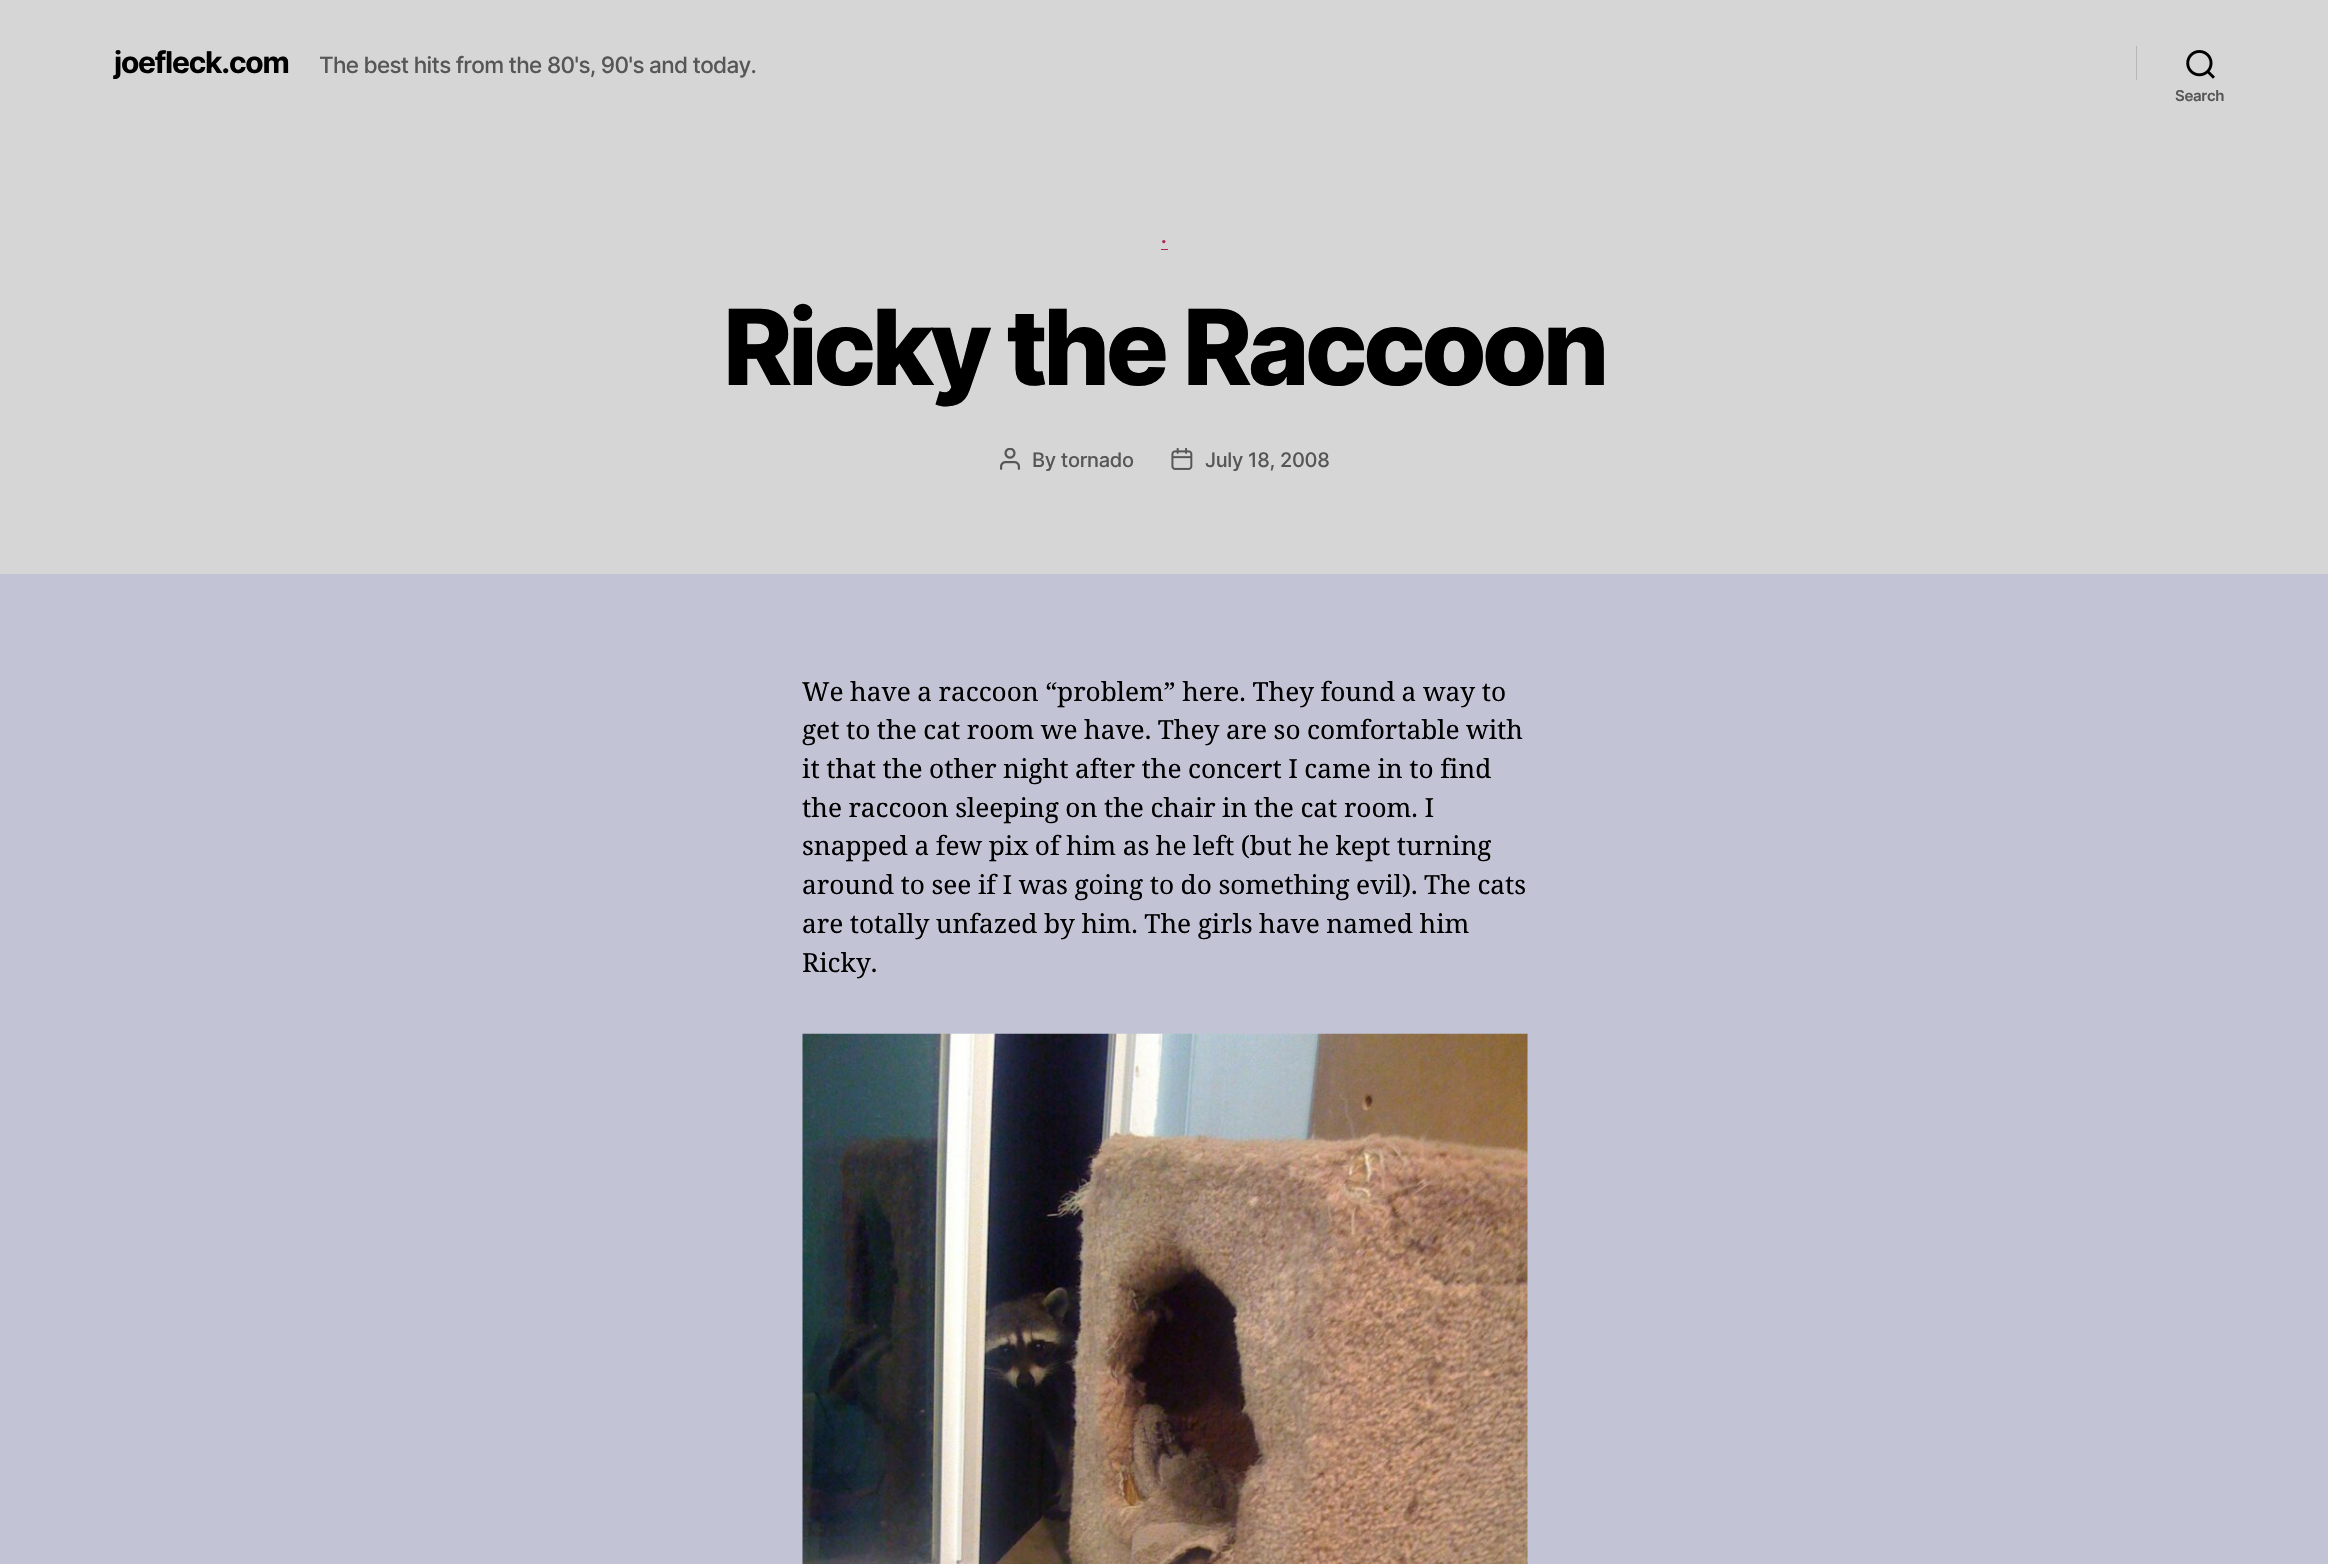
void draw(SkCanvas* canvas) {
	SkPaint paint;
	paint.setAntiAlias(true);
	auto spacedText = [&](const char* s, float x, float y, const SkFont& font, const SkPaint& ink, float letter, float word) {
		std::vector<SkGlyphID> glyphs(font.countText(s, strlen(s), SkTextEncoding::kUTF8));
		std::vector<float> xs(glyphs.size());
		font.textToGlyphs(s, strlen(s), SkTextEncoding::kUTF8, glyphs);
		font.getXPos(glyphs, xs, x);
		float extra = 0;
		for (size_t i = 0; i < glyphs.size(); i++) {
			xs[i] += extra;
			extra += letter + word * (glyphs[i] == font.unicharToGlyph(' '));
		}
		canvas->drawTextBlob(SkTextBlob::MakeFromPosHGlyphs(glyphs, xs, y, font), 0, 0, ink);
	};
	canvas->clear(0xffc2c4d6);
	paint.setColor(0xffd6d6d6);
	canvas->drawRect(SkRect::MakeXYWH(0, 0, 2328, 574), paint);
	SkFont f1(fontMgr->matchFamilyStyle("Inter", SkFontStyle::Bold()), 30);
	f1.setSubpixel(true);
	paint.setColor(0xff000000);
	spacedText("joefleck.com", 114, 73, f1, paint, -1.25, 0);
	SkFont f2(fontMgr->matchFamilyStyle("Inter", SkFontStyle(500, SkFontStyle::kNormal_Width, SkFontStyle::kUpright_Slant)), 22.5);
	f2.setSubpixel(true);
	paint.setColor(0xff565656);
	spacedText("The best hits from the 80's, 90's and today.", 319, 73, f2, paint, -0.7, 0);
	paint.setColor(0xffb7b7b7);
	canvas->drawRect(SkRect::MakeXYWH(2136, 46, 1, 34), paint);
	canvas->drawImageRect(SkImages::DeferredFromEncodedData(SkData::MakeFromFileName("img1.png")), SkRect::MakeXYWH(2186, 50, 29, 29), SkSamplingOptions());
	SkFont f3(fontMgr->matchFamilyStyle("Inter", SkFontStyle(600, SkFontStyle::kNormal_Width, SkFontStyle::kUpright_Slant)), 15);
	f3.setSubpixel(true);
	paint.setColor(0xff565656);
	spacedText("Search", 2175, 101, f3, paint, -0.3, 0);
	paint.setColor(0xffb0254a);
	canvas->drawRect(SkRect::MakeXYWH(1161, 249, 7, 1), paint);
	SkFont f4(fontMgr->matchFamilyStyle("Inter", SkFontStyle::Bold()), 19);
	f4.setSubpixel(true);
	spacedText(".", 1161, 243, f4, paint, 1, 0);
	SkFont f5(fontMgr->matchFamilyStyle("Inter", SkFontStyle(800, SkFontStyle::kNormal_Width, SkFontStyle::kUpright_Slant)), 105);
	f5.setSubpixel(true);
	paint.setColor(0xff000000);
	spacedText("Ricky the Raccoon", 723, 385, f5, paint, -4.4, 0);
	canvas->drawImageRect(SkImages::DeferredFromEncodedData(SkData::MakeFromFileName("img2.png")), SkRect::MakeXYWH(1000, 448, 20, 22), SkSamplingOptions());
	SkFont f6(fontMgr->matchFamilyStyle("Inter", SkFontStyle(500, SkFontStyle::kNormal_Width, SkFontStyle::kUpright_Slant)), 20);
	f6.setSubpixel(true);
	paint.setColor(0xff565656);
	spacedText("By tornado", 1032, 467, f6, paint, -0.3, 0);
	canvas->drawImageRect(SkImages::DeferredFromEncodedData(SkData::MakeFromFileName("img3.png")), SkRect::MakeXYWH(1171, 448, 22, 22), SkSamplingOptions());
	spacedText("July 18, 2008", 1205, 467, f6, paint, -0.3, 0);
	SkFont f7(fontMgr->matchFamilyStyle("Noto Serif", SkFontStyle::Normal()), 26.25);
	f7.setSubpixel(true);
	paint.setColor(0xff000000);
	spacedText("We have a raccoon “problem” here. They found a way to", 802, 701, f7, paint, 0, -0.3);
	spacedText("get to the cat room we have. They are so comfortable with", 802, 739, f7, paint, 0, -0.3);
	spacedText("it that the other night after the concert I came in to find", 802, 778, f7, paint, 0, -0.3);
	spacedText("the raccoon sleeping on the chair in the cat room. I", 802, 817, f7, paint, 0, -0.3);
	spacedText("snapped a few pix of him as he left (but he kept turning", 802, 855, f7, paint, 0, -0.3);
	spacedText("around to see if I was going to do something evil). The cats", 802, 894, f7, paint, 0, -0.3);
	spacedText("are totally unfazed by him. The girls have named him", 802, 933, f7, paint, 0, -0.3);
	canvas->drawString("Ricky.", 802, 972, f7, paint);
	canvas->drawImageRect(SkImages::DeferredFromEncodedData(SkData::MakeFromFileName("img4.png")), SkRect::MakeXYWH(802, 1033, 726, 531), SkSamplingOptions());
}
